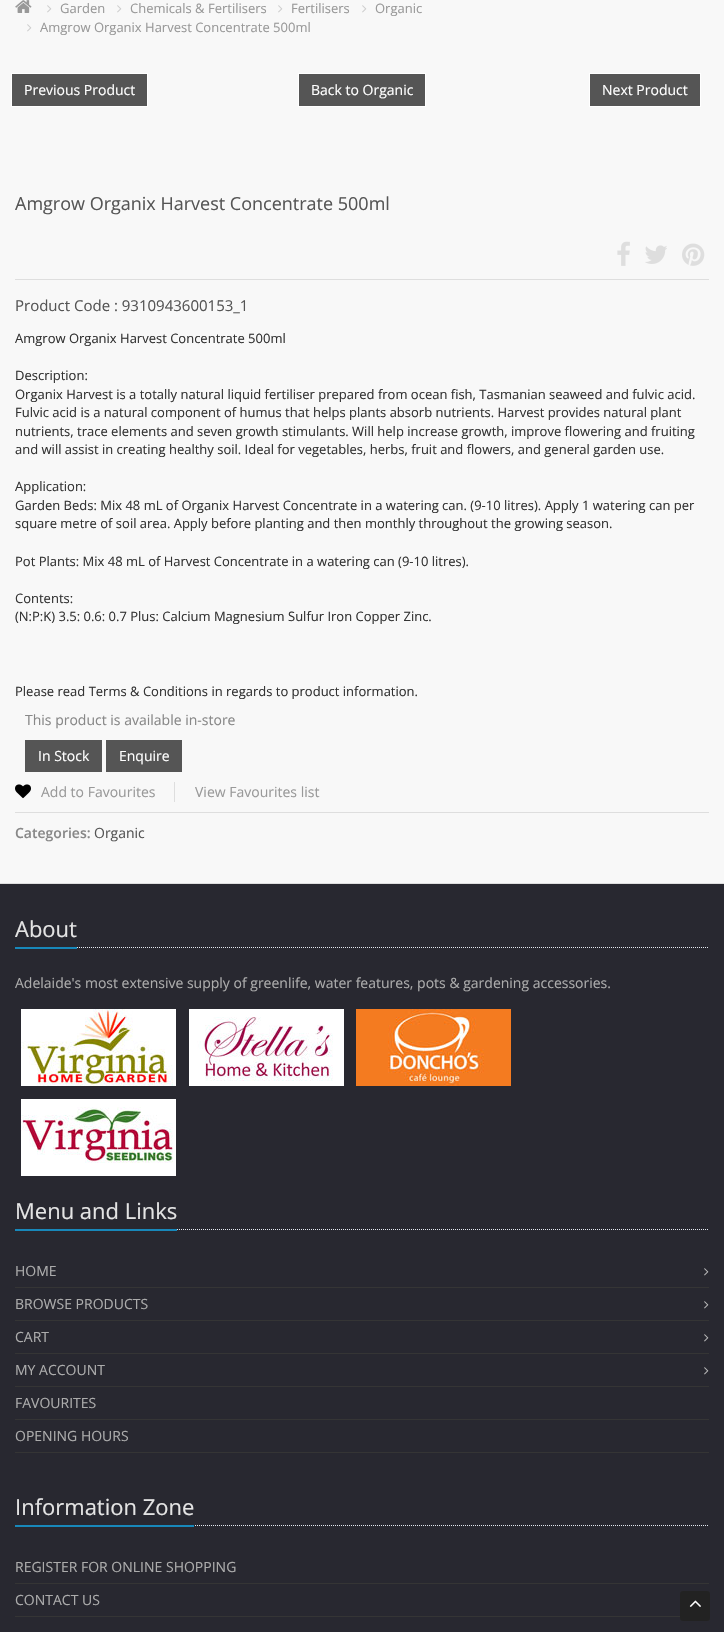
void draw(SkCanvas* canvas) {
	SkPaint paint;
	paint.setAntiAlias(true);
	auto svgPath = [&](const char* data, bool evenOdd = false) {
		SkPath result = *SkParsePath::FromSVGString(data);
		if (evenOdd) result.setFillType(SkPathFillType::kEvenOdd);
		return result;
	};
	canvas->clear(0xfff8f8f8);
	paint.setColor(0xffdedede);
	canvas->drawRect(SkRect::MakeXYWH(0, 883, 724, 1), paint);
	canvas->drawImageRect(SkImages::DeferredFromEncodedData(SkData::MakeFromFileName("img1.png")), SkRect::MakeXYWH(15, 0, 17, 13), SkSamplingOptions());
	canvas->drawImageRect(SkImages::DeferredFromEncodedData(SkData::MakeFromFileName("img2.png")), SkRect::MakeXYWH(47, 5, 5, 8), SkSamplingOptions());
	SkFont f1(fontMgr->matchFamilyStyle("Open Sans", SkFontStyle::Normal()), 13);
	f1.setSubpixel(true);
	paint.setColor(0xff999999);
	canvas->drawString("Garden", 60, 13, f1, paint);
	canvas->drawImageRect(SkImages::DeferredFromEncodedData(SkData::MakeFromFileName("img2.png")), SkRect::MakeXYWH(117, 5, 5, 8), SkSamplingOptions());
	canvas->drawString("Chemicals & Fertilisers", 130, 13, f1, paint);
	canvas->drawImageRect(SkImages::DeferredFromEncodedData(SkData::MakeFromFileName("img2.png")), SkRect::MakeXYWH(278, 5, 5, 8), SkSamplingOptions());
	canvas->drawString("Fertilisers", 291, 13, f1, paint);
	canvas->drawImageRect(SkImages::DeferredFromEncodedData(SkData::MakeFromFileName("img2.png")), SkRect::MakeXYWH(362, 5, 5, 8), SkSamplingOptions());
	canvas->drawString("Organic", 375, 13, f1, paint);
	canvas->drawImageRect(SkImages::DeferredFromEncodedData(SkData::MakeFromFileName("img2.png")), SkRect::MakeXYWH(27, 24, 5, 8), SkSamplingOptions());
	canvas->drawString("Amgrow Organix Harvest Concentrate 500ml", 40, 32, f1, paint);
	paint.setColor(0xff555555);
	canvas->drawRect(SkRect::MakeXYWH(11.5, 73.5, 136, 33), paint);
	paint.setStroke(true);
	paint.setStrokeWidth(1);
	paint.setColor(0xffffffff);
	canvas->drawRect(SkRect::MakeXYWH(11.5, 73.5, 136, 33), paint);
	SkFont f2(fontMgr->matchFamilyStyle("Open Sans", SkFontStyle::Normal()), 14);
	f2.setSubpixel(true);
	paint.setStroke(false);
	canvas->drawString("Previous Product", 24, 95, f2, paint);
	paint.setColor(0xff555555);
	canvas->drawRect(SkRect::MakeXYWH(298.5, 73.5, 127, 33), paint);
	paint.setStroke(true);
	paint.setColor(0xffffffff);
	canvas->drawRect(SkRect::MakeXYWH(298.5, 73.5, 127, 33), paint);
	paint.setStroke(false);
	canvas->drawString("Back to Organic", 311, 95, f2, paint);
	paint.setColor(0xff555555);
	canvas->drawRect(SkRect::MakeXYWH(589.5, 73.5, 111, 33), paint);
	paint.setStroke(true);
	paint.setColor(0xffffffff);
	canvas->drawRect(SkRect::MakeXYWH(589.5, 73.5, 111, 33), paint);
	paint.setStroke(false);
	canvas->drawString("Next Product", 602, 95, f2, paint);
	paint.setColor(0xffdedede);
	canvas->drawRect(SkRect::MakeXYWH(15, 279, 694, 1), paint);
	SkFont f3(fontMgr->matchFamilyStyle("Open Sans", SkFontStyle::Normal()), 18);
	f3.setSubpixel(true);
	paint.setColor(0xff555555);
	canvas->drawString("Amgrow Organix Harvest Concentrate 500ml", 15, 210, f3, paint);
	canvas->drawImageRect(SkImages::DeferredFromEncodedData(SkData::MakeFromFileName("img3.png")), SkRect::MakeXYWH(617, 241, 13, 25), SkSamplingOptions());
	canvas->drawImageRect(SkImages::DeferredFromEncodedData(SkData::MakeFromFileName("img4.png")), SkRect::MakeXYWH(645, 245, 22, 19), SkSamplingOptions());
	canvas->drawImageRect(SkImages::DeferredFromEncodedData(SkData::MakeFromFileName("img5.png")), SkRect::MakeXYWH(682, 243, 23, 23), SkSamplingOptions());
	SkFont f4(fontMgr->matchFamilyStyle("Open Sans", SkFontStyle::Normal()), 15);
	f4.setSubpixel(true);
	canvas->drawString("Product Code : 9310943600153_1", 15, 311, f4, paint);
	paint.setColor(0xff333333);
	canvas->drawString("Amgrow Organix Harvest Concentrate 500ml", 15, 343, f1, paint);
	canvas->drawString("Description:", 15, 380, f1, paint);
	canvas->drawString("Organix Harvest is a totally natural liquid fertiliser prepared from ocean fish, Tasmanian seaweed and fulvic acid.", 15, 399, f1, paint);
	canvas->drawString("Fulvic acid is a natural component of humus that helps plants absorb nutrients. Harvest provides natural plant", 15, 417, f1, paint);
	canvas->drawString("nutrients, trace elements and seven growth stimulants. Will help increase growth, improve flowering and fruiting", 15, 436, f1, paint);
	canvas->drawString("and will assist in creating healthy soil. Ideal for vegetables, herbs, fruit and flowers, and general garden use.", 15, 454, f1, paint);
	canvas->drawString("Application:", 15, 491, f1, paint);
	canvas->drawString("Garden Beds: Mix 48 mL of Organix Harvest Concentrate in a watering can. (9-10 litres). Apply 1 watering can per", 15, 510, f1, paint);
	canvas->drawString("square metre of soil area. Apply before planting and then monthly throughout the growing season.", 15, 528, f1, paint);
	canvas->drawString("Pot Plants: Mix 48 mL of Harvest Concentrate in a watering can (9-10 litres).", 15, 566, f1, paint);
	canvas->drawString("Contents:", 15, 603, f1, paint);
	canvas->drawString("(N:P:K) 3.5: 0.6: 0.7 Plus: Calcium Magnesium Sulfur Iron Copper Zinc.", 15, 621, f1, paint);
	canvas->drawString("Please read Terms & Conditions in regards to product information.", 15, 696, f1, paint);
	paint.setColor(0xff888888);
	canvas->drawString("This product is available in-store", 25, 725, f2, paint);
	paint.setColor(0xff555555);
	canvas->drawRect(SkRect::MakeXYWH(25, 740, 77, 32), paint);
	paint.setColor(0xffffffff);
	canvas->drawString("In Stock", 38, 761, f2, paint);
	paint.setColor(0xff555555);
	canvas->drawRect(SkRect::MakeXYWH(106, 740, 76, 32), paint);
	paint.setColor(0xffffffff);
	canvas->drawString("Enquire", 119, 761, f2, paint);
	paint.setColor(0xffdedede);
	canvas->drawRect(SkRect::MakeXYWH(15, 812, 694, 1), paint);
	canvas->drawImageRect(SkImages::DeferredFromEncodedData(SkData::MakeFromFileName("img6.png")), SkRect::MakeXYWH(15, 784, 16, 15), SkSamplingOptions());
	paint.setColor(0xff999999);
	canvas->drawString("Add to Favourites", 41, 797, f2, paint);
	paint.setColor(0xffdedede);
	canvas->drawRect(SkRect::MakeXYWH(174, 782, 1, 20), paint);
	paint.setColor(0xff999999);
	canvas->drawString("View Favourites list", 195, 797, f2, paint);
	SkFont f5(fontMgr->matchFamilyStyle("Open Sans", SkFontStyle(600, SkFontStyle::kNormal_Width, SkFontStyle::kUpright_Slant)), 14);
	f5.setSubpixel(true);
	paint.setColor(0xff888888);
	canvas->drawString("Categories:", 15, 838, f5, paint);
	paint.setColor(0xff555555);
	canvas->drawString("Organic", 94, 838, f2, paint);
	paint.setColor(0xff282830);
	canvas->drawRect(SkRect::MakeXYWH(0, 884, 724, 748), paint);
	paint.setStroke(true);
	paint.setColor(0xffe4e9f0);
	paint.setPathEffect(SkDashPathEffect::Make({{1, 1}}, 0));
	canvas->drawPath(svgPath("M15 947.5H709"), paint);
	paint.setPathEffect(nullptr);
	paint.setStroke(false);
	paint.setColor(0xff1888ba);
	canvas->drawRect(SkRect::MakeXYWH(15, 947, 62, 2), paint);
	SkFont f6(fontMgr->matchFamilyStyle("Open Sans", SkFontStyle::Normal()), 22);
	f6.setSubpixel(true);
	paint.setColor(0xffe4e4e4);
	canvas->drawString("About", 15, 937, f6, paint);
	paint.setColor(0xffacacac);
	canvas->drawString("Adelaide's most extensive supply of greenlife, water features, pots & gardening accessories.", 15, 988, f2, paint);
	canvas->drawImageRect(SkImages::DeferredFromEncodedData(SkData::MakeFromFileName("img7.png")), SkRect::MakeXYWH(21, 1009, 155, 77), SkSamplingOptions());
	canvas->drawImageRect(SkImages::DeferredFromEncodedData(SkData::MakeFromFileName("img8.png")), SkRect::MakeXYWH(189, 1009, 155, 77), SkSamplingOptions());
	canvas->drawImageRect(SkImages::DeferredFromEncodedData(SkData::MakeFromFileName("img9.png")), SkRect::MakeXYWH(356, 1009, 155, 77), SkSamplingOptions());
	canvas->drawImageRect(SkImages::DeferredFromEncodedData(SkData::MakeFromFileName("img10.png")), SkRect::MakeXYWH(21, 1099, 155, 77), SkSamplingOptions());
	paint.setStroke(true);
	paint.setColor(0xffe4e9f0);
	paint.setPathEffect(SkDashPathEffect::Make({{1, 1}}, 0));
	canvas->drawPath(svgPath("M15 1229.5H709"), paint);
	paint.setPathEffect(nullptr);
	paint.setStroke(false);
	paint.setColor(0xff1888ba);
	canvas->drawRect(SkRect::MakeXYWH(15, 1229, 162, 2), paint);
	paint.setColor(0xffe4e4e4);
	canvas->drawString("Menu and Links", 15, 1219, f6, paint);
	paint.setColor(0xffacacac);
	canvas->drawString("HOME", 15, 1276, f2, paint);
	canvas->drawImageRect(SkImages::DeferredFromEncodedData(SkData::MakeFromFileName("img11.png")), SkRect::MakeXYWH(704, 1268, 5, 8), SkSamplingOptions());
	paint.setColor(0xff353535);
	canvas->drawRect(SkRect::MakeXYWH(15, 1287, 694, 1), paint);
	paint.setColor(0xffacacac);
	canvas->drawString("BROWSE PRODUCTS", 15, 1309, f2, paint);
	canvas->drawImageRect(SkImages::DeferredFromEncodedData(SkData::MakeFromFileName("img11.png")), SkRect::MakeXYWH(704, 1301, 5, 8), SkSamplingOptions());
	paint.setColor(0xff353535);
	canvas->drawRect(SkRect::MakeXYWH(15, 1320, 694, 1), paint);
	paint.setColor(0xffacacac);
	canvas->drawString("CART", 15, 1342, f2, paint);
	canvas->drawImageRect(SkImages::DeferredFromEncodedData(SkData::MakeFromFileName("img11.png")), SkRect::MakeXYWH(704, 1334, 5, 8), SkSamplingOptions());
	paint.setColor(0xff353535);
	canvas->drawRect(SkRect::MakeXYWH(15, 1353, 694, 1), paint);
	paint.setColor(0xffacacac);
	canvas->drawString("MY ACCOUNT", 15, 1375, f2, paint);
	canvas->drawImageRect(SkImages::DeferredFromEncodedData(SkData::MakeFromFileName("img11.png")), SkRect::MakeXYWH(704, 1367, 5, 8), SkSamplingOptions());
	paint.setColor(0xff353535);
	canvas->drawRect(SkRect::MakeXYWH(15, 1386, 694, 1), paint);
	paint.setColor(0xffacacac);
	canvas->drawString("FAVOURITES", 15, 1408, f2, paint);
	paint.setColor(0xff353535);
	canvas->drawRect(SkRect::MakeXYWH(15, 1419, 694, 1), paint);
	paint.setColor(0xffacacac);
	canvas->drawString("OPENING HOURS", 15, 1441, f2, paint);
	paint.setColor(0xff353535);
	canvas->drawRect(SkRect::MakeXYWH(15, 1452, 694, 1), paint);
	paint.setStroke(true);
	paint.setColor(0xffe4e9f0);
	paint.setPathEffect(SkDashPathEffect::Make({{1, 1}}, 0));
	canvas->drawPath(svgPath("M15 1525.5H709"), paint);
	paint.setPathEffect(nullptr);
	paint.setStroke(false);
	paint.setColor(0xff1888ba);
	canvas->drawRect(SkRect::MakeXYWH(15, 1525, 179, 2), paint);
	paint.setColor(0xffe4e4e4);
	canvas->drawString("Information Zone", 15, 1515, f6, paint);
	paint.setColor(0xffacacac);
	canvas->drawString("REGISTER FOR ONLINE SHOPPING", 15, 1572, f2, paint);
	paint.setColor(0xff353535);
	canvas->drawRect(SkRect::MakeXYWH(15, 1583, 694, 1), paint);
	paint.setColor(0xffacacac);
	canvas->drawString("CONTACT US", 15, 1605, f2, paint);
	paint.setColor(0xff353535);
	canvas->drawRect(SkRect::MakeXYWH(15, 1616, 665, 1), paint);
	paint.setColor(0xff222222);
	canvas->drawRoundRect(SkRect::MakeXYWH(680, 1591, 30, 30), 3, 3, paint);
	canvas->drawImageRect(SkImages::DeferredFromEncodedData(SkData::MakeFromFileName("img12.png")), SkRect::MakeXYWH(689, 1600, 12, 7), SkSamplingOptions());
}
